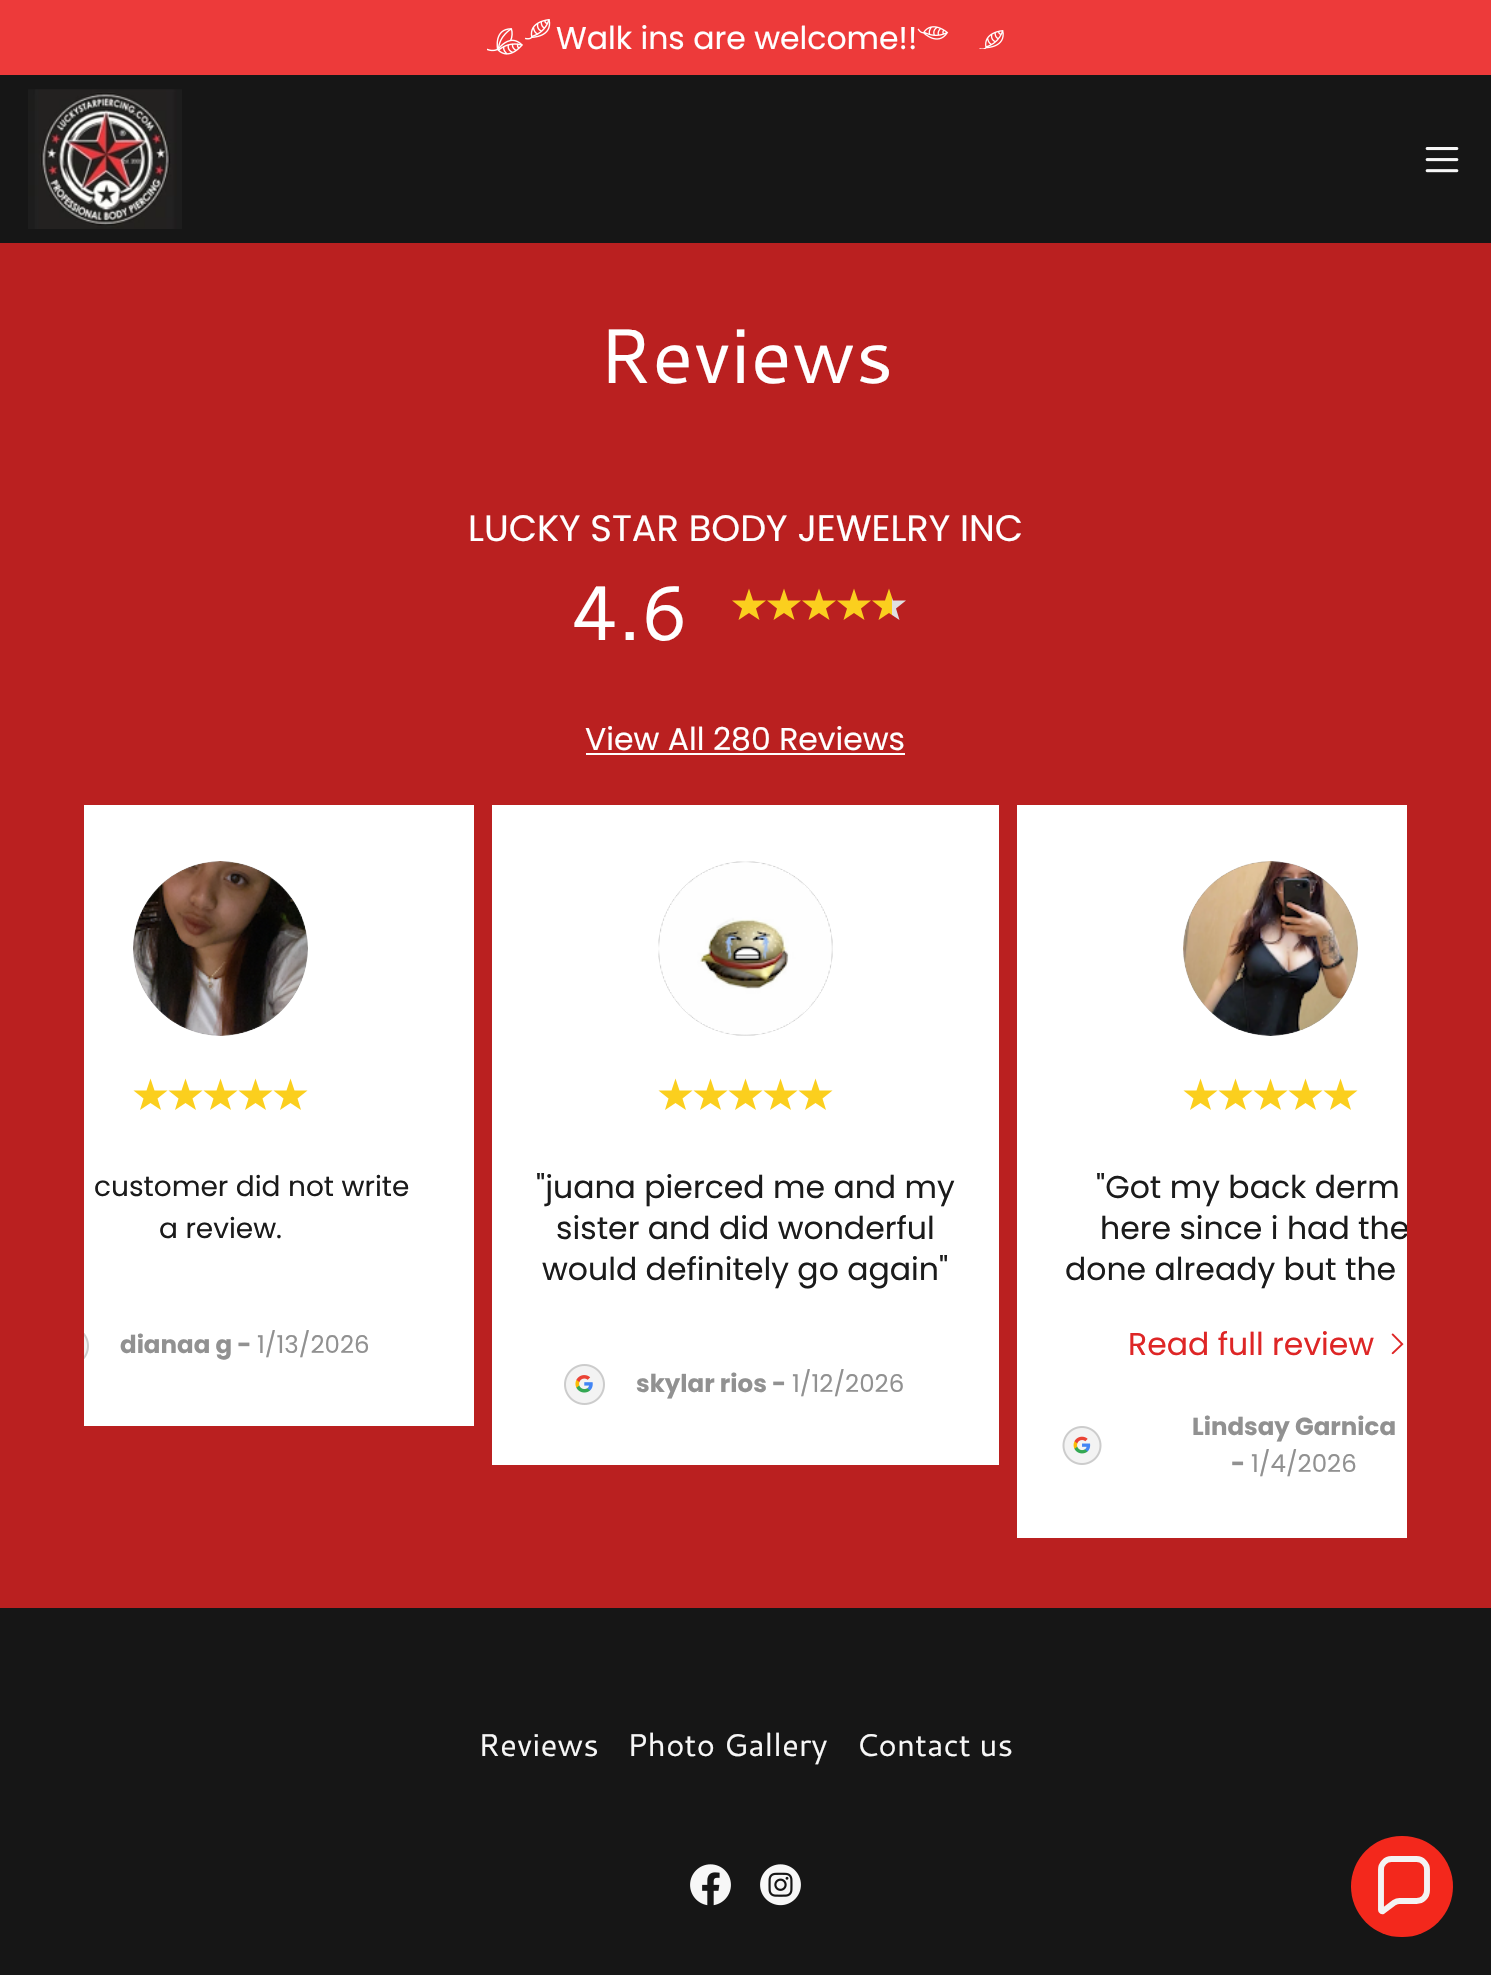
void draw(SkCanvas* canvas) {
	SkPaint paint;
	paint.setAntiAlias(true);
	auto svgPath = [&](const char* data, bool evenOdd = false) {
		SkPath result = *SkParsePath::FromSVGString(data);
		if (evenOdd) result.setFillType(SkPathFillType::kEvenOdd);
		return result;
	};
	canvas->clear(0xff161616);
	paint.setColor(0xffed3a3a);
	canvas->drawRect(SkRect::MakeXYWH(0, 0, 1491, 75), paint);
	canvas->drawImageRect(SkImages::DeferredFromEncodedData(SkData::MakeFromFileName("img1.png")), SkRect::MakeXYWH(487, 19, 64, 36), SkSamplingOptions());
	SkFont f1(fontMgr->matchFamilyStyle("Poppins", SkFontStyle::Normal()), 31.5);
	f1.setSubpixel(true);
	paint.setColor(0xffffffff);
	canvas->drawString("Walk ins are welcome!!", 556, 49, f1, paint);
	canvas->drawImageRect(SkImages::DeferredFromEncodedData(SkData::MakeFromFileName("img2.png")), SkRect::MakeXYWH(917, 26, 87, 23), SkSamplingOptions());
	canvas->drawImageRect(SkImages::DeferredFromEncodedData(SkData::MakeFromFileName("img3.png")), SkRect::MakeXYWH(28, 89, 154, 140), SkSamplingOptions());
	canvas->drawImageRect(SkImages::DeferredFromEncodedData(SkData::MakeFromFileName("img4.png")), SkRect::MakeXYWH(1425, 147, 34, 26), SkSamplingOptions());
	paint.setColor(0xffba2020);
	canvas->drawRect(SkRect::MakeXYWH(0, 243, 1491, 1365), paint);
	SkFont f2(fontMgr->matchFamilyStyle("Cantarell", SkFontStyle::Normal()), 77);
	f2.setSubpixel(true);
	paint.setColor(0xffffffff);
	canvas->drawString("Reviews", 598, 383, f2, paint);
	SkFont f3(fontMgr->matchFamilyStyle("Poppins", SkFontStyle::Normal()), 36.75);
	f3.setSubpixel(true);
	canvas->drawString("LUCKY STAR BODY JEWELRY INC", 468, 541, f3, paint);
	canvas->drawString("4.6", 570, 640, f2, paint);
	paint.setColor(0xfffbcf1e);
	canvas->drawPath(svgPath("M749 588.5L753 600.5H766L756 608.5L759.5 620L749 613L738.5 620L742 608.5L732 600.5H745Z"), paint);
	canvas->drawPath(svgPath("M784 588.5L788 600.5H801L791 608.5L794.5 620L784 613L773.5 620L777 608.5L767 600.5H780Z"), paint);
	canvas->drawPath(svgPath("M819 588.5L823 600.5H836L826 608.5L829.5 620L819 613L808.5 620L812 608.5L802 600.5H815Z"), paint);
	canvas->drawPath(svgPath("M854 588.5L858 600.5H871L861 608.5L864.5 620L854 613L843.5 620L847 608.5L837 600.5H850Z"), paint);
	{
		const SkColor colors[] = {0xfffbcf1e, 0xfffbcf1e, 0xffe0e0e0, 0xffe0e0e0};
		const float stops[] = {0, 0.6, 0.6, 1};
		const SkPoint ends[] = {{872, 589}, {906, 589}};
		paint.setShader(SkGradientShader::MakeLinear(ends, colors, stops, 4, SkTileMode::kClamp));
		paint.setAlpha(255);
	}
	canvas->drawPath(svgPath("M889 588.5L893 600.5H906L896 608.5L899.5 620L889 613L878.5 620L882 608.5L872 600.5H885Z"), paint);
	paint.setShader(nullptr);
	paint.setColor(0xffffffff);
	canvas->drawString("View All 280 Reviews", 585, 750, f1, paint);
	canvas->drawRect(SkRect::MakeXYWH(586, 753, 319, 2), paint);
	canvas->drawRect(SkRect::MakeXYWH(84, 805, 390, 621), paint);
	paint.setColor(0xfff3f3f3);
	canvas->drawCircle(220.5, 948.5, 87.5, paint);
	canvas->drawImageRect(SkImages::DeferredFromEncodedData(SkData::MakeFromFileName("img5.png")), SkRect::MakeXYWH(133, 861, 175, 175), SkSamplingOptions());
	paint.setColor(0xfffbcf1e);
	canvas->drawPath(svgPath("M150.5 1078.5L154.5 1090.5H167.5L157.5 1098.5L161 1110L150.5 1103L140 1110L143.5 1098.5L133.5 1090.5H146.5Z"), paint);
	canvas->drawPath(svgPath("M185.5 1078.5L189.5 1090.5H202.5L192.5 1098.5L196 1110L185.5 1103L175 1110L178.5 1098.5L168.5 1090.5H181.5Z"), paint);
	canvas->drawPath(svgPath("M220.5 1078.5L224.5 1090.5H237.5L227.5 1098.5L231 1110L220.5 1103L210 1110L213.5 1098.5L203.5 1090.5H216.5Z"), paint);
	canvas->drawPath(svgPath("M255.5 1078.5L259.5 1090.5H272.5L262.5 1098.5L266 1110L255.5 1103L245 1110L248.5 1098.5L238.5 1090.5H251.5Z"), paint);
	canvas->drawPath(svgPath("M290.5 1078.5L294.5 1090.5H307.5L297.5 1098.5L301 1110L290.5 1103L280 1110L283.5 1098.5L273.5 1090.5H286.5Z"), paint);
	SkFont f4(fontMgr->matchFamilyStyle("Poppins", SkFontStyle::Normal()), 28);
	f4.setSubpixel(true);
	paint.setColor(0xff1b1b1b);
	canvas->drawString("customer did not write", 94, 1196, f4, paint);
	canvas->drawString("a review.", 159, 1238, f4, paint);
	canvas->drawImageRect(SkImages::DeferredFromEncodedData(SkData::MakeFromFileName("img6.png")), SkRect::MakeXYWH(84, 1333, 5, 26), SkSamplingOptions());
	SkFont f5(fontMgr->matchFamilyStyle("Poppins", SkFontStyle::Bold()), 24.5);
	f5.setSubpixel(true);
	paint.setColor(0xff919191);
	canvas->drawString("dianaa g -", 120, 1353, f5, paint);
	SkFont f6(fontMgr->matchFamilyStyle("Poppins", SkFontStyle::Normal()), 24.5);
	f6.setSubpixel(true);
	canvas->drawString("1/13/2026", 257, 1353, f6, paint);
	paint.setColor(0xffffffff);
	canvas->drawRect(SkRect::MakeXYWH(492, 805, 507, 660), paint);
	paint.setColor(0xfff3f3f3);
	canvas->drawCircle(745.5, 948.5, 87.5, paint);
	canvas->drawImageRect(SkImages::DeferredFromEncodedData(SkData::MakeFromFileName("img7.png")), SkRect::MakeXYWH(658, 861, 175, 175), SkSamplingOptions());
	paint.setColor(0xfffbcf1e);
	canvas->drawPath(svgPath("M675.5 1078.5L679.5 1090.5H692.5L682.5 1098.5L686 1110L675.5 1103L665 1110L668.5 1098.5L658.5 1090.5H671.5Z"), paint);
	canvas->drawPath(svgPath("M710.5 1078.5L714.5 1090.5H727.5L717.5 1098.5L721 1110L710.5 1103L700 1110L703.5 1098.5L693.5 1090.5H706.5Z"), paint);
	canvas->drawPath(svgPath("M745.5 1078.5L749.5 1090.5H762.5L752.5 1098.5L756 1110L745.5 1103L735 1110L738.5 1098.5L728.5 1090.5H741.5Z"), paint);
	canvas->drawPath(svgPath("M780.5 1078.5L784.5 1090.5H797.5L787.5 1098.5L791 1110L780.5 1103L770 1110L773.5 1098.5L763.5 1090.5H776.5Z"), paint);
	canvas->drawPath(svgPath("M815.5 1078.5L819.5 1090.5H832.5L822.5 1098.5L826 1110L815.5 1103L805 1110L808.5 1098.5L798.5 1090.5H811.5Z"), paint);
	paint.setColor(0xff1b1b1b);
	canvas->drawString("\"juana pierced me and my", 536, 1198, f1, paint);
	canvas->drawString("sister and did wonderful", 556, 1239, f1, paint);
	canvas->drawString("would definitely go again\"", 542, 1280, f1, paint);
	canvas->drawImageRect(SkImages::DeferredFromEncodedData(SkData::MakeFromFileName("img8.png")), SkRect::MakeXYWH(564, 1364, 41, 41), SkSamplingOptions());
	paint.setColor(0xff919191);
	canvas->drawString("skylar rios -", 636, 1392, f5, paint);
	canvas->drawString("1/12/2026", 792, 1392, f6, paint);
	paint.setColor(0xffffffff);
	canvas->drawRect(SkRect::MakeXYWH(1017, 805, 390, 733), paint);
	paint.setColor(0xfff3f3f3);
	canvas->drawCircle(1270.5, 948.5, 87.5, paint);
	canvas->drawImageRect(SkImages::DeferredFromEncodedData(SkData::MakeFromFileName("img9.png")), SkRect::MakeXYWH(1183, 861, 175, 175), SkSamplingOptions());
	paint.setColor(0xfffbcf1e);
	canvas->drawPath(svgPath("M1200.5 1078.5L1204.5 1090.5H1217.5L1207.5 1098.5L1211 1110L1200.5 1103L1190 1110L1193.5 1098.5L1183.5 1090.5H1196.5Z"), paint);
	canvas->drawPath(svgPath("M1235.5 1078.5L1239.5 1090.5H1252.5L1242.5 1098.5L1246 1110L1235.5 1103L1225 1110L1228.5 1098.5L1218.5 1090.5H1231.5Z"), paint);
	canvas->drawPath(svgPath("M1270.5 1078.5L1274.5 1090.5H1287.5L1277.5 1098.5L1281 1110L1270.5 1103L1260 1110L1263.5 1098.5L1253.5 1090.5H1266.5Z"), paint);
	canvas->drawPath(svgPath("M1305.5 1078.5L1309.5 1090.5H1322.5L1312.5 1098.5L1316 1110L1305.5 1103L1295 1110L1298.5 1098.5L1288.5 1090.5H1301.5Z"), paint);
	canvas->drawPath(svgPath("M1340.5 1078.5L1344.5 1090.5H1357.5L1347.5 1098.5L1351 1110L1340.5 1103L1330 1110L1333.5 1098.5L1323.5 1090.5H1336.5Z"), paint);
	paint.setColor(0xff1b1b1b);
	canvas->drawString("\"Got my back derm", 1096, 1198, f1, paint);
	canvas->save();
	canvas->clipRect(SkRect::MakeXYWH(1017, 805, 390, 733));
	canvas->drawString("here since i had the", 1100, 1239, f1, paint);
	canvas->restore();
	canvas->drawString("done already but the", 1065, 1280, f1, paint);
	paint.setColor(0xffde2626);
	canvas->drawString("Read full review", 1128, 1355, f1, paint);
	canvas->drawImageRect(SkImages::DeferredFromEncodedData(SkData::MakeFromFileName("img10.png")), SkRect::MakeXYWH(1391, 1333, 13, 22), SkSamplingOptions());
	canvas->drawImageRect(SkImages::DeferredFromEncodedData(SkData::MakeFromFileName("img11.png")), SkRect::MakeXYWH(1062, 1426, 40, 39), SkSamplingOptions());
	paint.setColor(0xff919191);
	canvas->drawString("Lindsay Garnica", 1192, 1435, f5, paint);
	canvas->drawString("-", 1231, 1472, f5, paint);
	canvas->drawString("1/4/2026", 1251, 1472, f6, paint);
	SkFont f7(fontMgr->matchFamilyStyle("Cantarell", SkFontStyle::Normal()), 31.5);
	f7.setSubpixel(true);
	paint.setColor(0xfff7f7f7);
	canvas->drawString("Reviews", 478, 1756, f7, paint);
	canvas->drawString("Photo Gallery", 627, 1756, f7, paint);
	canvas->drawString("Contact us", 856, 1756, f7, paint);
	canvas->drawImageRect(SkImages::DeferredFromEncodedData(SkData::MakeFromFileName("img12.png")), SkRect::MakeXYWH(690, 1864, 41, 42), SkSamplingOptions());
	canvas->drawImageRect(SkImages::DeferredFromEncodedData(SkData::MakeFromFileName("img13.png")), SkRect::MakeXYWH(760, 1864, 41, 42), SkSamplingOptions());
	paint.setColor(0xfff3281c);
	canvas->drawRoundRect(SkRect::MakeXYWH(1351, 1836, 102, 101), 50.5, 50.5, paint);
	paint.setStroke(true);
	paint.setStrokeWidth(5.9);
	paint.setColor(0xfff3f3f3);
	canvas->drawPath(svgPath("M1416.5 1859H1391.5C1385.5 1859 1381 1864 1381 1869.5V1910C1381 1911 1382 1911.5 1383 1911L1394.5 1902.5C1396 1901.5 1397.5 1901 1399.5 1901H1416.5C1422.5 1901 1427 1896.5 1427 1890.5V1869.5C1427 1864 1422.5 1859 1416.5 1859Z"), paint);
}
